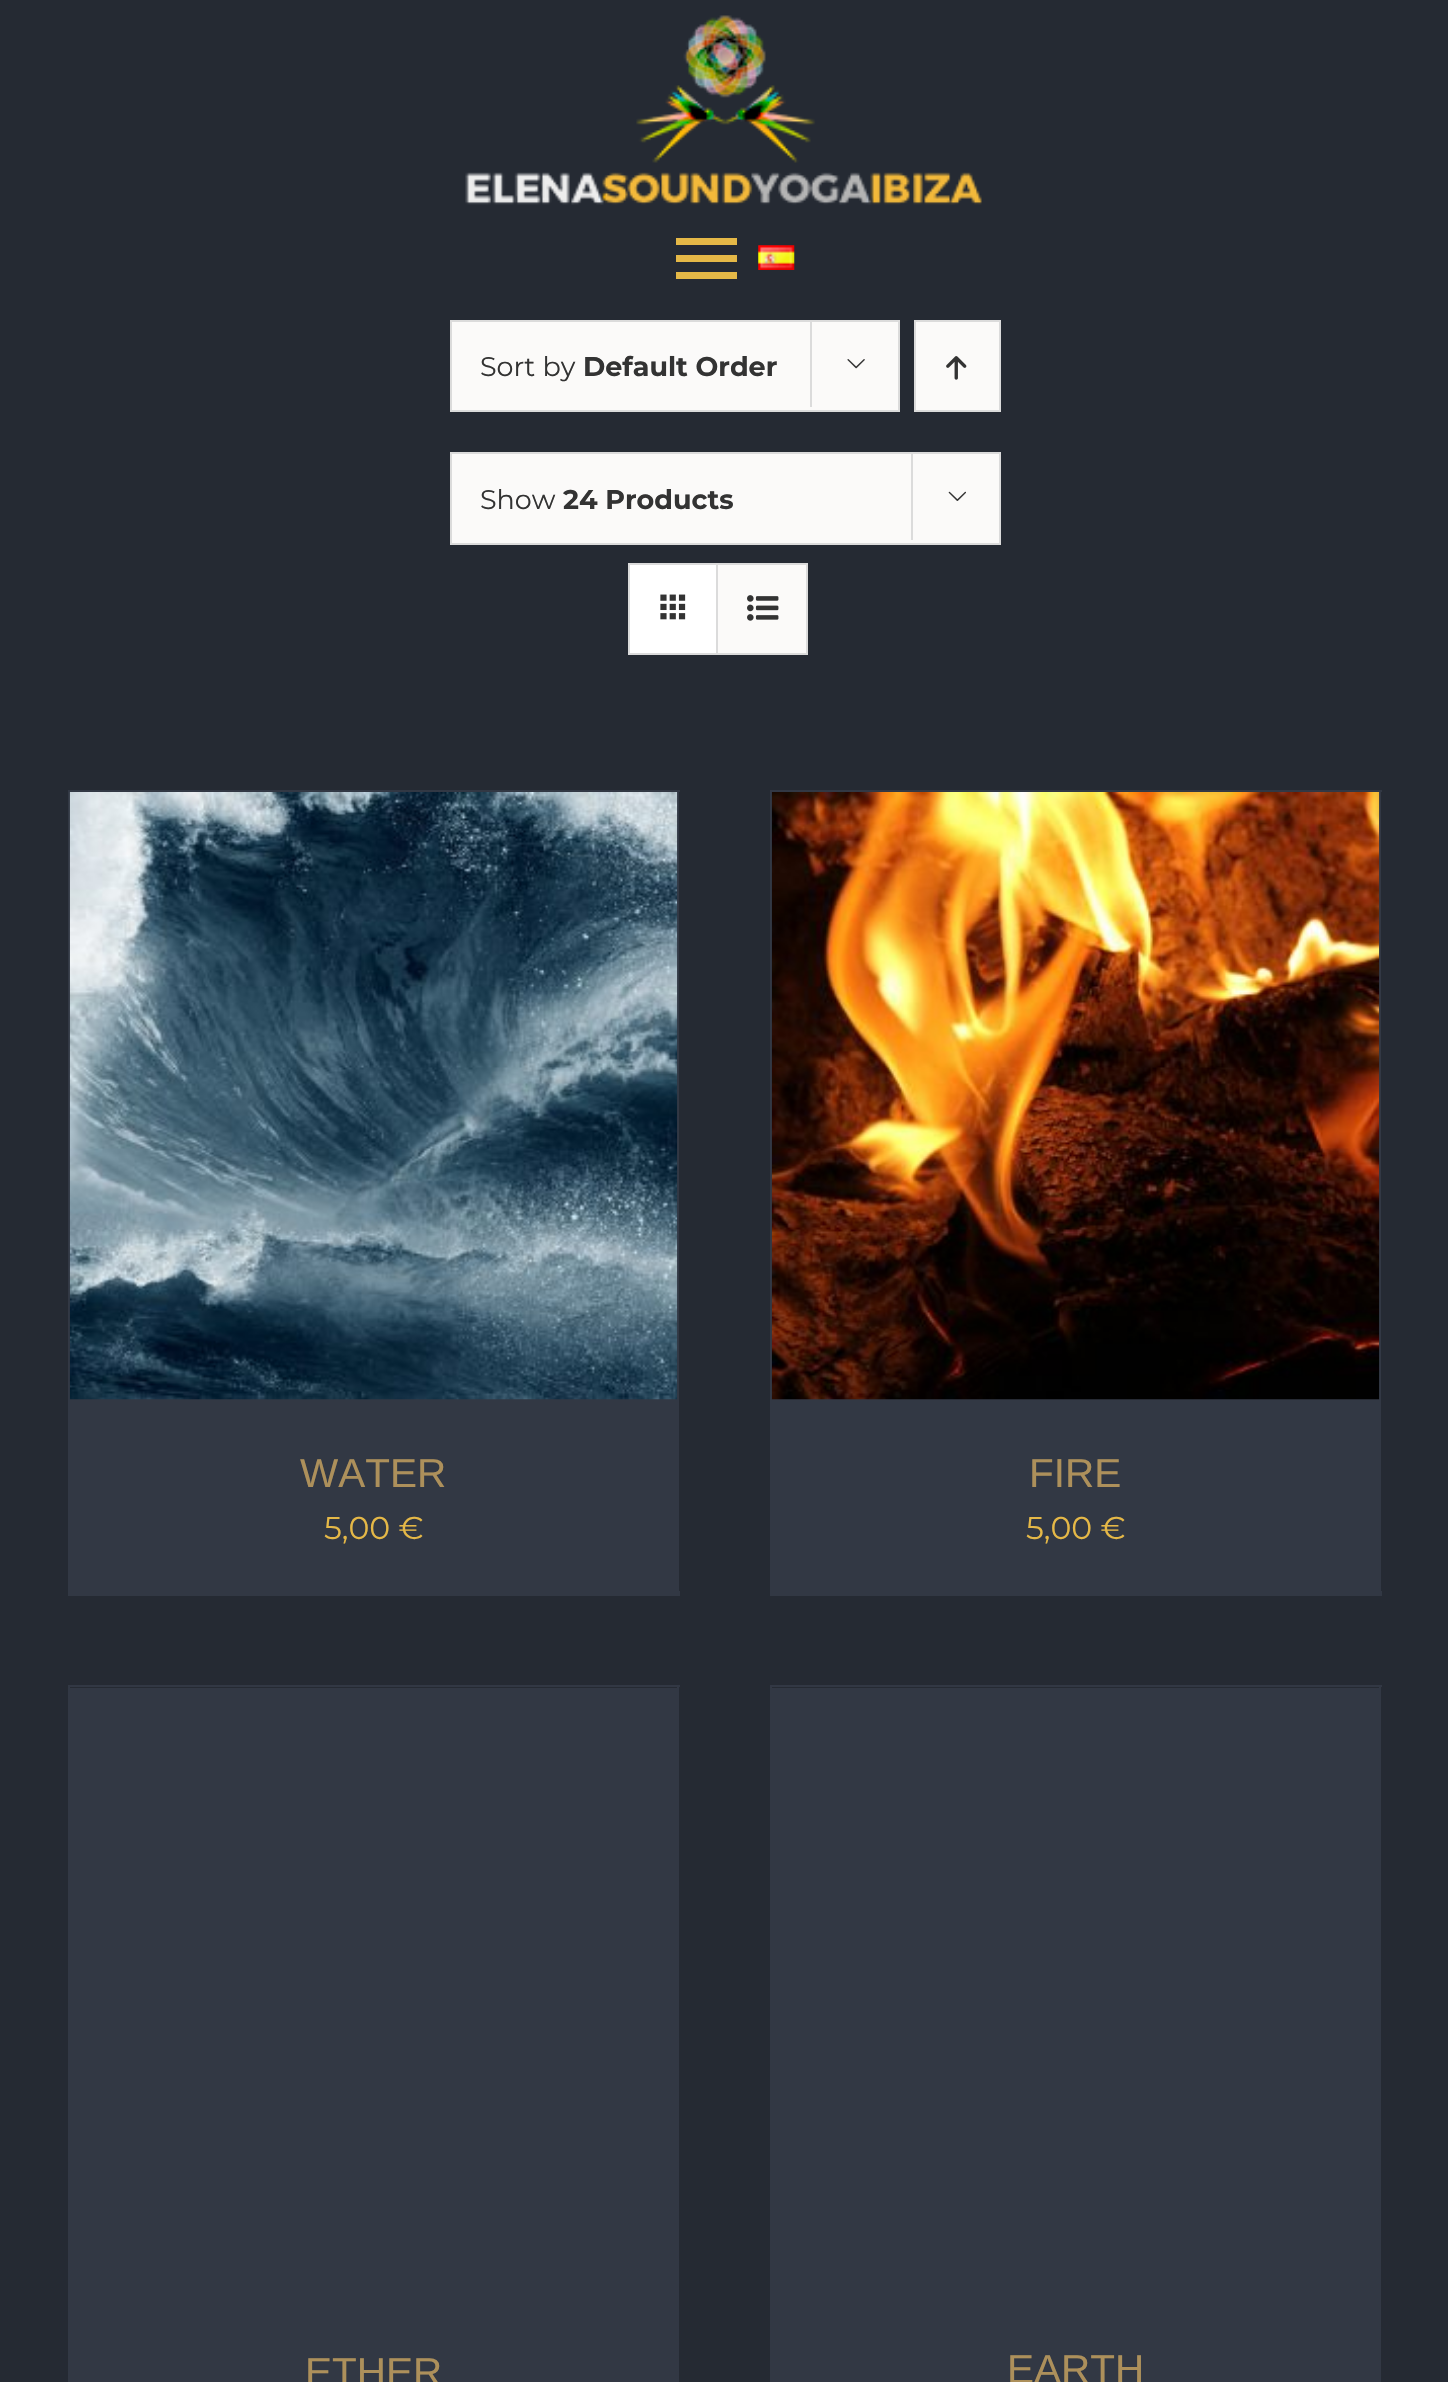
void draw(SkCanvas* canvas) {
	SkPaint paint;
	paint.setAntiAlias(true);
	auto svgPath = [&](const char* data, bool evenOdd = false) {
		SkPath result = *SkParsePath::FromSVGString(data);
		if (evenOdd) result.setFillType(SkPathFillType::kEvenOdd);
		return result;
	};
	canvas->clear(0xff252a33);
	canvas->drawImageRect(SkImages::DeferredFromEncodedData(SkData::MakeFromFileName("img1.png")), SkRect::MakeXYWH(465, 15, 517, 190), SkSamplingOptions());
	paint.setColor(0xffe5b847);
	canvas->drawPath(svgPath("M676 238H737V245H676ZM676 262V255H737V262ZM676 279V272H737V279Z"), paint);
	canvas->drawImageRect(SkImages::DeferredFromEncodedData(SkData::MakeFromFileName("img2.png")), SkRect::MakeXYWH(758, 245, 37, 25), SkSamplingOptions());
	paint.setColor(0xfffbfaf9);
	canvas->drawRect(SkRect::MakeXYWH(451, 321, 448, 90), paint);
	paint.setStroke(true);
	paint.setStrokeWidth(2);
	paint.setColor(0xffdbdbdb);
	canvas->drawRect(SkRect::MakeXYWH(451, 321, 448, 90), paint);
	SkFont f1(fontMgr->matchFamilyStyle("Montserrat", SkFontStyle::Normal()), 27);
	f1.setSubpixel(true);
	paint.setStroke(false);
	paint.setColor(0xff333333);
	canvas->drawString("Sort by", 480, 376, f1, paint);
	SkFont f2(fontMgr->matchFamilyStyle("Montserrat", SkFontStyle::Bold()), 27);
	f2.setSubpixel(true);
	canvas->drawString("Default Order", 583, 376, f2, paint);
	paint.setColor(0xffdbdbdb);
	canvas->drawRect(SkRect::MakeXYWH(810, 320, 2, 87), paint);
	canvas->drawImageRect(SkImages::DeferredFromEncodedData(SkData::MakeFromFileName("img3.png")), SkRect::MakeXYWH(847, 359, 18, 10), SkSamplingOptions());
	paint.setColor(0xfffbfaf9);
	canvas->drawRect(SkRect::MakeXYWH(915, 321, 85, 90), paint);
	paint.setStroke(true);
	paint.setColor(0xffdbdbdb);
	canvas->drawRect(SkRect::MakeXYWH(915, 321, 85, 90), paint);
	canvas->drawImageRect(SkImages::DeferredFromEncodedData(SkData::MakeFromFileName("img4.png")), SkRect::MakeXYWH(946, 356, 21, 24), SkSamplingOptions());
	paint.setStroke(false);
	paint.setColor(0xfffbfaf9);
	canvas->drawRect(SkRect::MakeXYWH(451, 453, 549, 91), paint);
	paint.setStroke(true);
	paint.setColor(0xffdbdbdb);
	canvas->drawRect(SkRect::MakeXYWH(451, 453, 549, 91), paint);
	paint.setStroke(false);
	paint.setColor(0xff333333);
	canvas->drawString("Show", 480, 509, f1, paint);
	canvas->drawString("24 Products", 563, 509, f2, paint);
	paint.setColor(0xffdbdbdb);
	canvas->drawRect(SkRect::MakeXYWH(911, 452, 2, 88), paint);
	canvas->drawImageRect(SkImages::DeferredFromEncodedData(SkData::MakeFromFileName("img5.png")), SkRect::MakeXYWH(948, 491, 18, 10), SkSamplingOptions());
	paint.setStroke(true);
	canvas->drawRect(SkRect::MakeXYWH(629, 564, 178, 90), paint);
	paint.setStroke(false);
	paint.setColor(0xffffffff);
	canvas->drawRect(SkRect::MakeXYWH(630, 565, 86, 88), paint);
	paint.setColor(0xffdbdbdb);
	canvas->drawRect(SkRect::MakeXYWH(716, 565, 2, 88), paint);
	canvas->drawImageRect(SkImages::DeferredFromEncodedData(SkData::MakeFromFileName("img6.png")), SkRect::MakeXYWH(660, 594, 26, 26), SkSamplingOptions());
	paint.setColor(0xfffbfaf9);
	canvas->drawRect(SkRect::MakeXYWH(718, 565, 88, 88), paint);
	canvas->drawImageRect(SkImages::DeferredFromEncodedData(SkData::MakeFromFileName("img7.png")), SkRect::MakeXYWH(747, 595, 32, 26), SkSamplingOptions());
	paint.setColor(0xff323844);
	canvas->drawRect(SkRect::MakeXYWH(70, 1399, 607, 192), paint);
	canvas->drawRect(SkRect::MakeXYWH(68, 790, 612, 2), paint);
	canvas->drawRect(SkRect::MakeXYWH(677, 790, 2, 805), paint);
	canvas->drawRect(SkRect::MakeXYWH(68, 1591, 612, 5), paint);
	canvas->drawRect(SkRect::MakeXYWH(68, 790, 2, 805), paint);
	canvas->drawImageRect(SkImages::DeferredFromEncodedData(SkData::MakeFromFileName("img8.png")), SkRect::MakeXYWH(69, 792, 609, 608), SkSamplingOptions());
	SkFont f3(fontMgr->matchFamilyStyle("Liberation Sans", SkFontStyle::Normal()), 40.5);
	f3.setSubpixel(true);
	paint.setColor(0xffad905b);
	canvas->drawString("WATER", 300, 1487, f3, paint);
	SkFont f4(fontMgr->matchFamilyStyle("Montserrat", SkFontStyle::Normal()), 31.5);
	f4.setSubpixel(true);
	paint.setColor(0xffe5b847);
	canvas->drawString("5,00 €", 324, 1539, f4, paint);
	paint.setColor(0xff323844);
	canvas->drawRect(SkRect::MakeXYWH(772, 1399, 607, 192), paint);
	canvas->drawRect(SkRect::MakeXYWH(770, 790, 612, 2), paint);
	canvas->drawRect(SkRect::MakeXYWH(1379, 790, 2, 805), paint);
	canvas->drawRect(SkRect::MakeXYWH(770, 1591, 612, 5), paint);
	canvas->drawRect(SkRect::MakeXYWH(770, 790, 2, 805), paint);
	canvas->drawImageRect(SkImages::DeferredFromEncodedData(SkData::MakeFromFileName("img9.png")), SkRect::MakeXYWH(771, 792, 609, 608), SkSamplingOptions());
	paint.setColor(0xffad905b);
	canvas->drawString("FIRE", 1029, 1487, f3, paint);
	paint.setColor(0xffe5b847);
	canvas->drawString("5,00 €", 1026, 1539, f4, paint);
	paint.setColor(0xff323844);
	canvas->drawRect(SkRect::MakeXYWH(70, 1688, 607, 694), paint);
	canvas->drawRect(SkRect::MakeXYWH(68, 1685, 612, 2), paint);
	canvas->drawRect(SkRect::MakeXYWH(677, 1685, 2, 697), paint);
	canvas->drawRect(SkRect::MakeXYWH(68, 1685, 2, 697), paint);
	paint.setColor(0xffad905b);
	canvas->drawString("ETHER", 305, 2386, f3, paint);
	paint.setColor(0xff323844);
	canvas->drawRect(SkRect::MakeXYWH(772, 1688, 607, 694), paint);
	canvas->drawRect(SkRect::MakeXYWH(770, 1685, 612, 2), paint);
	canvas->drawRect(SkRect::MakeXYWH(1379, 1685, 2, 697), paint);
	canvas->drawRect(SkRect::MakeXYWH(770, 1685, 2, 697), paint);
	paint.setColor(0xffad905b);
	canvas->drawString("EARTH", 1007, 2383, f3, paint);
}
